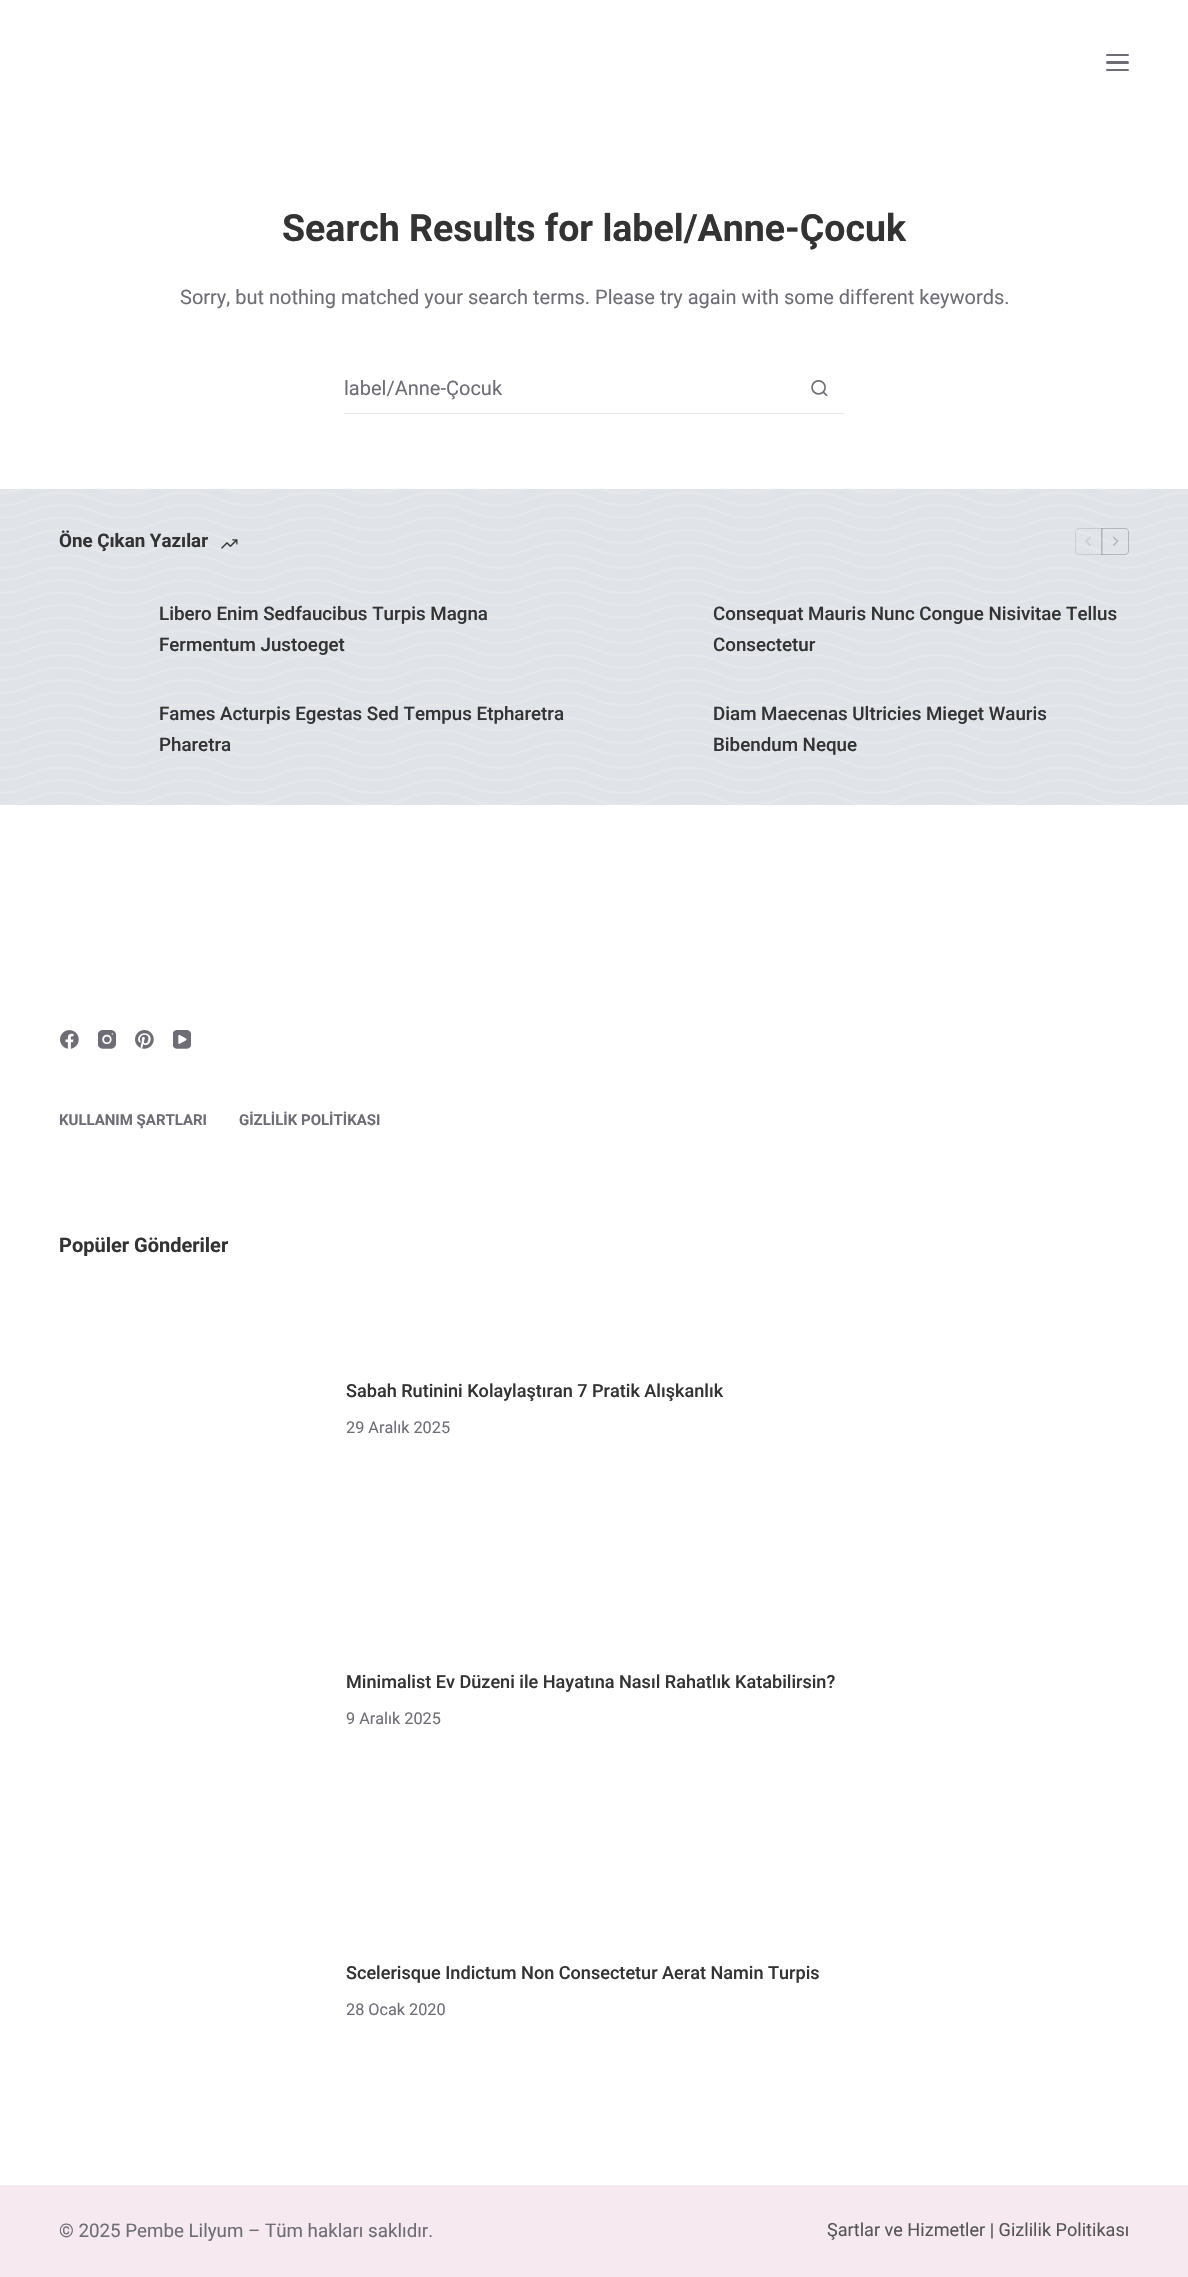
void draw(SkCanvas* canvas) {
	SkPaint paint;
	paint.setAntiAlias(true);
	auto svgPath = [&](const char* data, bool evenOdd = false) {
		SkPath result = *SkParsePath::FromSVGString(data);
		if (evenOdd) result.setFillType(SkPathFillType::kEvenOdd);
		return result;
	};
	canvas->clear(0xffffffff);
	paint.setColor(0xff6e6d76);
	canvas->drawRoundRect(SkRect::MakeXYWH(1106, 54, 23, 2), 1, 1, paint);
	canvas->drawRoundRect(SkRect::MakeXYWH(1106, 61, 23, 3), 1.5, 1.5, paint);
	canvas->drawRoundRect(SkRect::MakeXYWH(1106, 69, 23, 2), 1, 1, paint);
	SkFont f1(fontMgr->matchFamilyStyle("Roboto", SkFontStyle::Bold()), 37.5);
	f1.setSubpixel(true);
	paint.setColor(0xff333333);
	canvas->drawString("Search Results for label/Anne-Çocuk", 282, 241, f1, paint);
	SkFont f2(fontMgr->matchFamilyStyle("Roboto", SkFontStyle::Normal()), 20);
	f2.setSubpixel(true);
	paint.setColor(0xff6e6d76);
	canvas->drawString("Sorry, but nothing matched your search terms. Please try again with some different keywords.", 180, 304, f2, paint);
	paint.setColor(0xffe6e6e6);
	canvas->drawRect(SkRect::MakeXYWH(344, 413, 500, 1), paint);
	paint.setColor(0xff6e6d76);
	canvas->drawString("label/Anne-Çocuk", 344, 395, f2, paint);
	canvas->drawImageRect(SkImages::DeferredFromEncodedData(SkData::MakeFromFileName("img1.png")), SkRect::MakeXYWH(811, 380, 17, 16), SkSamplingOptions());
	paint.setColor(0xffe0e3e8);
	canvas->drawRect(SkRect::MakeXYWH(0, 489, 1188, 316), paint);
	canvas->drawImageRect(SkImages::DeferredFromEncodedData(SkData::MakeFromFileName("img2.png")), SkRect::MakeXYWH(0, 488, 1188, 317), SkSamplingOptions());
	SkFont f3(fontMgr->matchFamilyStyle("Roboto", SkFontStyle::Bold()), 18.75);
	f3.setSubpixel(true);
	paint.setColor(0xff333333);
	canvas->drawString("Öne Çıkan Yazılar", 59, 547, f3, paint);
	canvas->drawImageRect(SkImages::DeferredFromEncodedData(SkData::MakeFromFileName("img3.png")), SkRect::MakeXYWH(221, 539, 17, 10), SkSamplingOptions());
	paint.setStroke(true);
	paint.setStrokeWidth(1);
	paint.setColor(0x336e6d76);
	canvas->drawPath(svgPath("M1079 528.5H1102.5V554.5H1079C1077 554.5 1075.5 553 1075.5 551V532C1075.5 530 1077 528.5 1079 528.5Z"), paint);
	canvas->drawImageRect(SkImages::DeferredFromEncodedData(SkData::MakeFromFileName("img4.png")), SkRect::MakeXYWH(1085, 536, 6, 10), SkSamplingOptions());
	paint.setColor(0x666e6d76);
	canvas->drawPath(svgPath("M1101.5 528.5H1125C1127 528.5 1128.5 530 1128.5 532V551C1128.5 553 1127 554.5 1125 554.5H1101.5Z"), paint);
	canvas->drawImageRect(SkImages::DeferredFromEncodedData(SkData::MakeFromFileName("img5.png")), SkRect::MakeXYWH(1113, 536, 6, 10), SkSamplingOptions());
	SkFont f4(fontMgr->matchFamilyStyle("Roboto", SkFontStyle(500, SkFontStyle::kNormal_Width, SkFontStyle::kUpright_Slant)), 18.75);
	f4.setSubpixel(true);
	paint.setStroke(false);
	paint.setColor(0xff333333);
	canvas->drawString("Libero Enim Sedfaucibus Turpis Magna", 159, 620, f4, paint);
	canvas->drawString("Fermentum Justoeget", 159, 651, f4, paint);
	canvas->drawString("Consequat Mauris Nunc Congue Nisivitae Tellus", 713, 620, f4, paint);
	canvas->drawString("Consectetur", 713, 651, f4, paint);
	canvas->drawString("Fames Acturpis Egestas Sed Tempus Etpharetra", 159, 720, f4, paint);
	canvas->drawString("Pharetra", 159, 751, f4, paint);
	canvas->drawString("Diam Maecenas Ultricies Mieget Wauris", 713, 720, f4, paint);
	canvas->drawString("Bibendum Neque", 713, 751, f4, paint);
	canvas->drawImageRect(SkImages::DeferredFromEncodedData(SkData::MakeFromFileName("img6.png")), SkRect::MakeXYWH(60, 1030, 19, 19), SkSamplingOptions());
	canvas->drawImageRect(SkImages::DeferredFromEncodedData(SkData::MakeFromFileName("img7.png")), SkRect::MakeXYWH(98, 1030, 18, 19), SkSamplingOptions());
	canvas->drawImageRect(SkImages::DeferredFromEncodedData(SkData::MakeFromFileName("img8.png")), SkRect::MakeXYWH(135, 1030, 19, 19), SkSamplingOptions());
	canvas->drawImageRect(SkImages::DeferredFromEncodedData(SkData::MakeFromFileName("img9.png")), SkRect::MakeXYWH(173, 1030, 18, 19), SkSamplingOptions());
	SkFont f5(fontMgr->matchFamilyStyle("Roboto", SkFontStyle::Bold()), 15);
	f5.setSubpixel(true);
	paint.setColor(0xff6e6d76);
	canvas->drawString("KULLANIM ŞARTLARI", 59, 1125, f5, paint);
	canvas->drawString("GİZLİLİK POLİTİKASI", 239, 1125, f5, paint);
	SkFont f6(fontMgr->matchFamilyStyle("Roboto", SkFontStyle::Bold()), 20);
	f6.setSubpixel(true);
	paint.setColor(0xff333333);
	canvas->drawString("Popüler Gönderiler", 59, 1252, f6, paint);
	SkFont f7(fontMgr->matchFamilyStyle("Roboto", SkFontStyle(500, SkFontStyle::kNormal_Width, SkFontStyle::kUpright_Slant)), 18.1);
	f7.setSubpixel(true);
	canvas->drawString("Sabah Rutinini Kolaylaştıran 7 Pratik Alışkanlık", 346, 1397, f7, paint);
	SkFont f8(fontMgr->matchFamilyStyle("Roboto", SkFontStyle::Normal()), 16.25);
	f8.setSubpixel(true);
	paint.setColor(0xff6e6d76);
	canvas->drawString("29 Aralık 2025", 346, 1433, f8, paint);
	paint.setColor(0xff333333);
	canvas->drawString("Minimalist Ev Düzeni ile Hayatına Nasıl Rahatlık Katabilirsin?", 346, 1688, f7, paint);
	paint.setColor(0xff6e6d76);
	canvas->drawString("9 Aralık 2025", 346, 1724, f8, paint);
	paint.setColor(0xff333333);
	canvas->drawString("Scelerisque Indictum Non Consectetur Aerat Namin Turpis", 346, 1979, f7, paint);
	paint.setColor(0xff6e6d76);
	canvas->drawString("28 Ocak 2020", 346, 2015, f8, paint);
	paint.setColor(0xfff6e9ef);
	canvas->drawRect(SkRect::MakeXYWH(0, 2185, 1188, 92), paint);
	SkFont f9(fontMgr->matchFamilyStyle("Roboto", SkFontStyle::Normal()), 18.75);
	f9.setSubpixel(true);
	paint.setColor(0xff6e6d76);
	canvas->drawString("© 2025 Pembe Lilyum – Tüm hakları saklıdır.", 59, 2237, f9, paint);
	SkFont f10(fontMgr->matchFamilyStyle("Roboto", SkFontStyle::Normal()), 18.1);
	f10.setSubpixel(true);
	paint.setColor(0xff555555);
	canvas->drawString("Şartlar ve Hizmetler | Gizlilik Politikası", 827, 2236, f10, paint);
}
